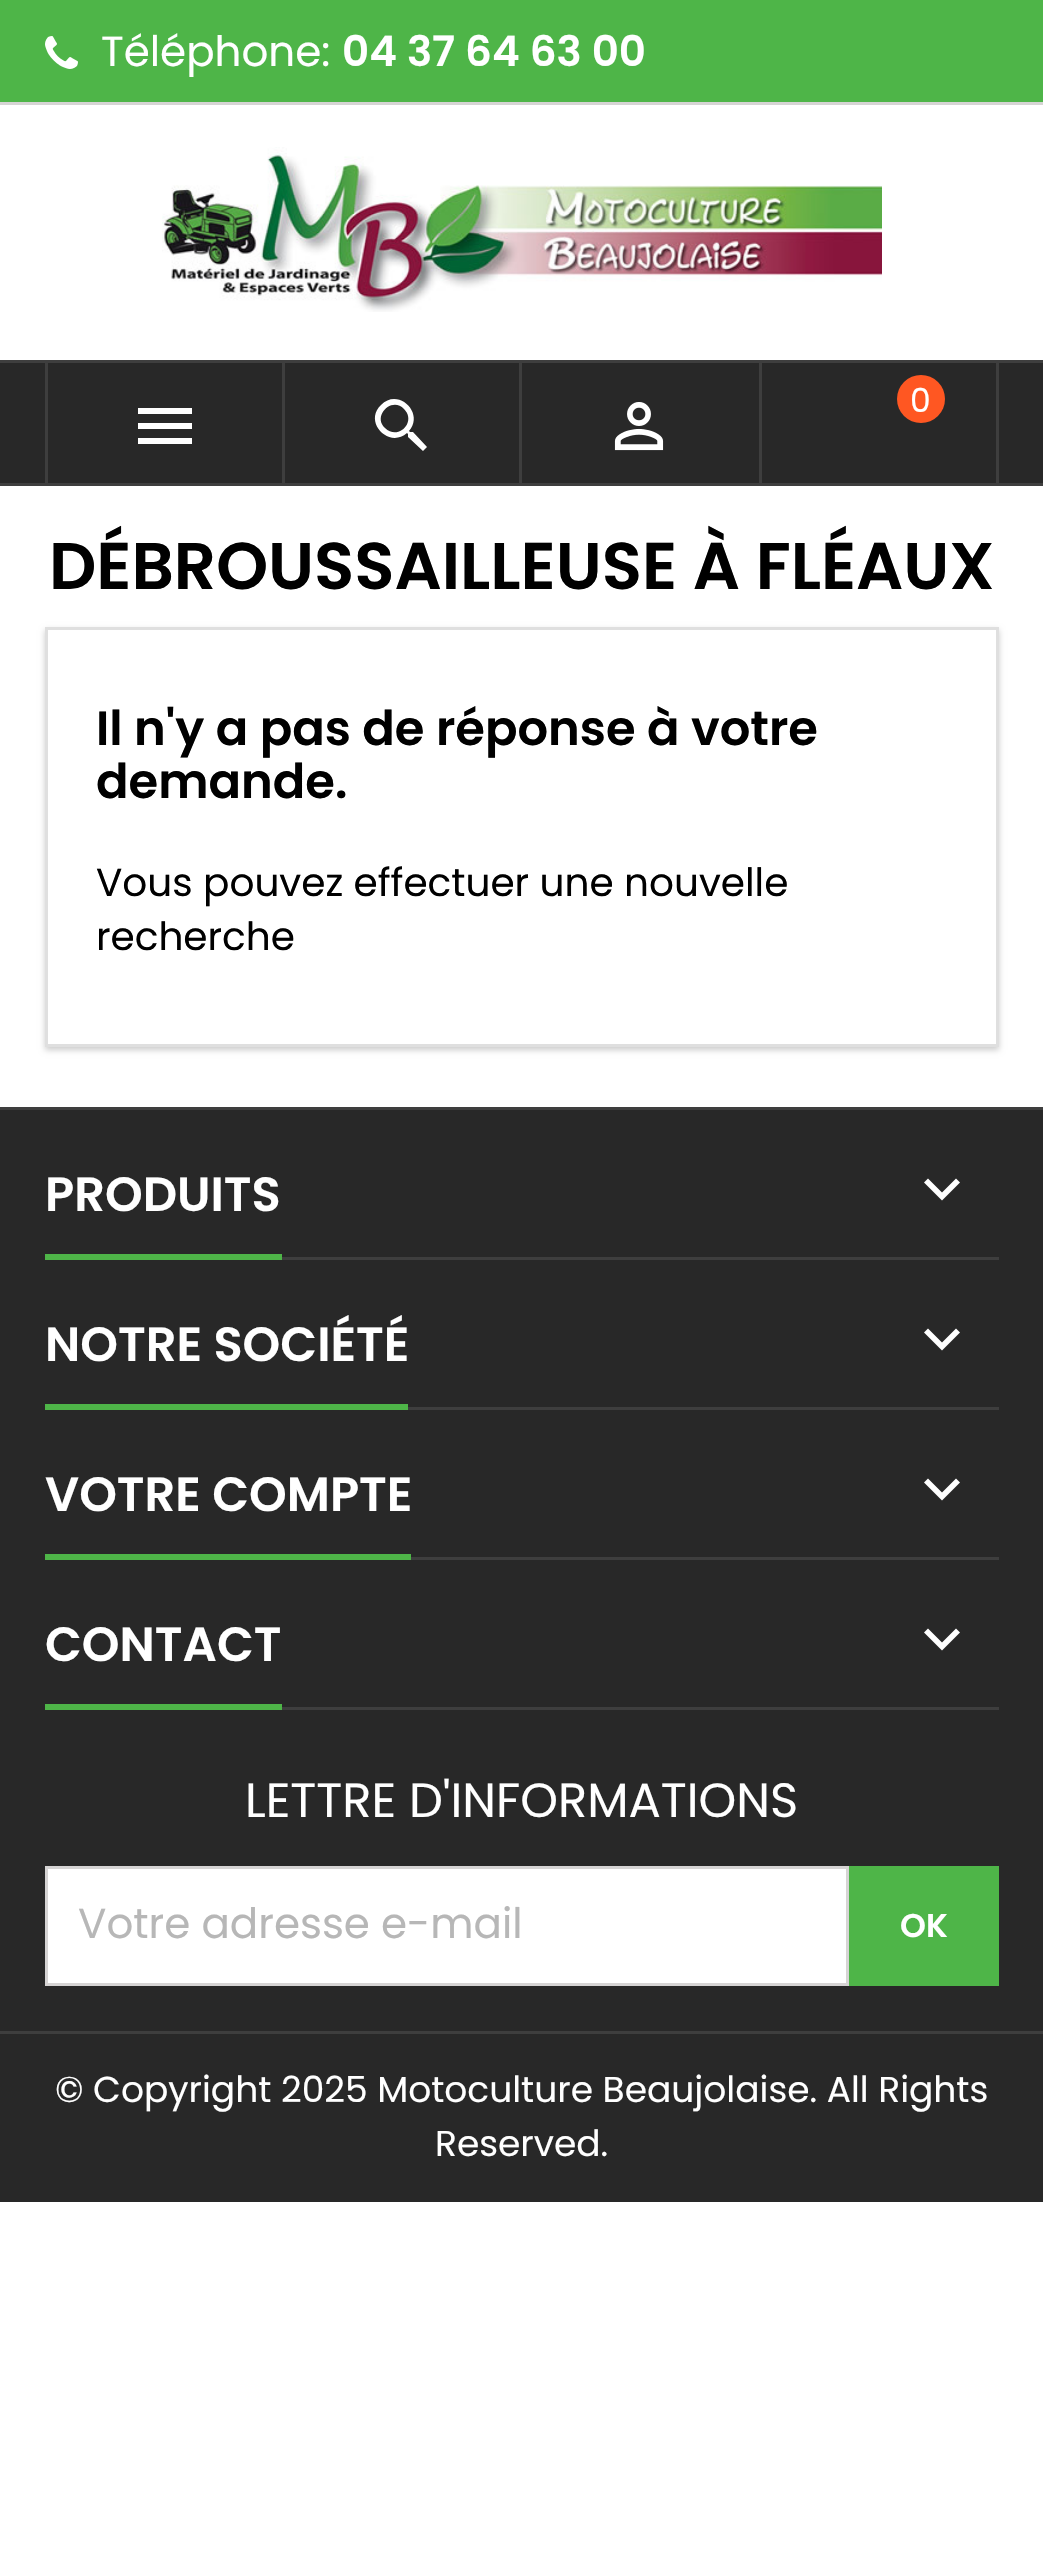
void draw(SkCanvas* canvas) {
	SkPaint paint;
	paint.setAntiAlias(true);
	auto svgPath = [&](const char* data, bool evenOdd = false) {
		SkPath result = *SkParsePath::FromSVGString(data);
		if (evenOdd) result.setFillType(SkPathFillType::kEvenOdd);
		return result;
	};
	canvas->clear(0xffffffff);
	paint.setColor(0xff4eb548);
	canvas->drawRect(SkRect::MakeXYWH(0, 0, 1043, 102), paint);
	paint.setColor(0xffd6d4d4);
	canvas->drawRect(SkRect::MakeXYWH(0, 102, 1043, 3), paint);
	canvas->drawImageRect(SkImages::DeferredFromEncodedData(SkData::MakeFromFileName("img1.png")), SkRect::MakeXYWH(45, 36, 33, 33), SkSamplingOptions());
	SkFont f1(fontMgr->matchFamilyStyle("Poppins", SkFontStyle::Normal()), 42);
	f1.setSubpixel(true);
	paint.setColor(0xffffffff);
	canvas->drawString("Téléphone:", 101, 66, f1, paint);
	SkFont f2(fontMgr->matchFamilyStyle("Poppins", SkFontStyle(600, SkFontStyle::kNormal_Width, SkFontStyle::kUpright_Slant)), 42);
	f2.setSubpixel(true);
	canvas->drawString("04 37 64 63 00", 342, 66, f2, paint);
	canvas->drawImageRect(SkImages::DeferredFromEncodedData(SkData::MakeFromFileName("img2.png")), SkRect::MakeXYWH(162, 147, 720, 165), SkSamplingOptions());
	paint.setColor(0xff282828);
	canvas->drawRect(SkRect::MakeXYWH(0, 363, 1043, 120), paint);
	paint.setColor(0xff3e3e3e);
	canvas->drawRect(SkRect::MakeXYWH(0, 360, 1043, 3), paint);
	canvas->drawRect(SkRect::MakeXYWH(0, 483, 1043, 3), paint);
	canvas->drawRect(SkRect::MakeXYWH(282, 363, 3, 120), paint);
	canvas->drawRect(SkRect::MakeXYWH(45, 363, 3, 120), paint);
	paint.setColor(0xffffffff);
	canvas->drawPath(svgPath("M138 408H192V414H138ZM138 429V423H192V429ZM138 444V438H192V444Z"), paint);
	paint.setColor(0xff3e3e3e);
	canvas->drawRect(SkRect::MakeXYWH(519, 363, 3, 120), paint);
	paint.setColor(0xffffffff);
	canvas->drawPath(svgPath("M385 428C398 441 417 422 404 409C392 396 372 416 385 428ZM413 432L427 447L423 451L408 437V434L407 433C389 449 363 422 381 405C398 387 425 413 409 431L410 432Z"), paint);
	paint.setColor(0xff3e3e3e);
	canvas->drawRect(SkRect::MakeXYWH(759, 363, 3, 120), paint);
	canvas->drawImageRect(SkImages::DeferredFromEncodedData(SkData::MakeFromFileName("img3.png")), SkRect::MakeXYWH(614, 402, 50, 49), SkSamplingOptions());
	canvas->drawRect(SkRect::MakeXYWH(996, 363, 3, 120), paint);
	paint.setColor(0xffff5722);
	canvas->drawCircle(921, 399, 24, paint);
	SkFont f3(fontMgr->matchFamilyStyle("Poppins", SkFontStyle::Normal()), 33);
	f3.setSubpixel(true);
	paint.setColor(0xffffffff);
	canvas->drawString("0", 910, 412, f3, paint);
	SkFont f4(fontMgr->matchFamilyStyle("Poppins", SkFontStyle(600, SkFontStyle::kNormal_Width, SkFontStyle::kUpright_Slant)), 66);
	f4.setSubpixel(true);
	paint.setColor(0xff000000);
	canvas->drawString("DÉBROUSSAILLEUSE À FLÉAUX", 49, 589, f4, paint);
	canvas->save();
	canvas->clipPath(svgPath("M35 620H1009V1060H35ZM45 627H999V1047H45Z", true), true);
	paint.setColor(0x33000000);
	paint.setMaskFilter(SkMaskFilter::MakeBlur(kNormal_SkBlurStyle, 3));
	canvas->drawRect(SkRect::MakeXYWH(45, 630, 954, 420), paint);
	paint.setMaskFilter(nullptr);
	canvas->restore();
	paint.setStroke(true);
	paint.setStrokeWidth(3);
	paint.setColor(0xffdfdfdf);
	canvas->drawRect(SkRect::MakeXYWH(46.5, 628.5, 951, 417), paint);
	SkFont f5(fontMgr->matchFamilyStyle("Poppins", SkFontStyle(600, SkFontStyle::kNormal_Width, SkFontStyle::kUpright_Slant)), 48);
	f5.setSubpixel(true);
	paint.setStroke(false);
	paint.setColor(0xff000000);
	canvas->drawString("Il n'y a pas de réponse à votre", 96, 745, f5, paint);
	canvas->drawString("demande.", 96, 798, f5, paint);
	SkFont f6(fontMgr->matchFamilyStyle("Poppins", SkFontStyle::Normal()), 39);
	f6.setSubpixel(true);
	canvas->drawString("Vous pouvez effectuer une nouvelle", 96, 896, f6, paint);
	canvas->drawString("recherche", 96, 950, f6, paint);
	paint.setColor(0xff282828);
	canvas->drawRect(SkRect::MakeXYWH(0, 1110, 1043, 921), paint);
	paint.setColor(0xff3e3e3e);
	canvas->drawRect(SkRect::MakeXYWH(0, 1107, 1043, 3), paint);
	canvas->drawRect(SkRect::MakeXYWH(282, 1257, 717, 3), paint);
	paint.setColor(0xff4eb548);
	canvas->drawRect(SkRect::MakeXYWH(45, 1254, 237, 6), paint);
	paint.setColor(0xffffffff);
	canvas->drawString("PRODUITS", 45, 1211, f5, paint);
	canvas->drawPath(svgPath("M928 1178.5L942 1192.5L956 1178.5L960 1182.5L942 1200.5L924 1182.5Z"), paint);
	paint.setColor(0xff3e3e3e);
	canvas->drawRect(SkRect::MakeXYWH(408, 1407, 591, 3), paint);
	paint.setColor(0xff4eb548);
	canvas->drawRect(SkRect::MakeXYWH(45, 1404, 363, 6), paint);
	paint.setColor(0xffffffff);
	canvas->drawString("NOTRE SOCIÉTÉ", 45, 1361, f5, paint);
	canvas->drawPath(svgPath("M928 1328.5L942 1342.5L956 1328.5L960 1332.5L942 1350.5L924 1332.5Z"), paint);
	paint.setColor(0xff3e3e3e);
	canvas->drawRect(SkRect::MakeXYWH(411, 1557, 588, 3), paint);
	paint.setColor(0xff4eb548);
	canvas->drawRect(SkRect::MakeXYWH(45, 1554, 366, 6), paint);
	paint.setColor(0xffffffff);
	canvas->drawString("VOTRE COMPTE", 45, 1511, f5, paint);
	canvas->drawPath(svgPath("M928 1478.5L942 1492.5L956 1478.5L960 1482.5L942 1500.5L924 1482.5Z"), paint);
	paint.setColor(0xff3e3e3e);
	canvas->drawRect(SkRect::MakeXYWH(282, 1707, 717, 3), paint);
	paint.setColor(0xff4eb548);
	canvas->drawRect(SkRect::MakeXYWH(45, 1704, 237, 6), paint);
	paint.setColor(0xffffffff);
	canvas->drawString("CONTACT", 45, 1661, f5, paint);
	canvas->drawPath(svgPath("M928 1628.5L942 1642.5L956 1628.5L960 1632.5L942 1650.5L924 1632.5Z"), paint);
	SkFont f7(fontMgr->matchFamilyStyle("Poppins", SkFontStyle::Normal()), 48);
	f7.setSubpixel(true);
	canvas->drawString("LETTRE D'INFORMATIONS", 245, 1817, f7, paint);
	canvas->drawRect(SkRect::MakeXYWH(46.5, 1867.5, 801, 117), paint);
	paint.setStroke(true);
	paint.setColor(0xffd6d4d4);
	canvas->drawRect(SkRect::MakeXYWH(46.5, 1867.5, 801, 117), paint);
	paint.setStroke(false);
	paint.setColor(0xffb7b7b7);
	canvas->drawString("Votre adresse e-mail", 78, 1938, f1, paint);
	paint.setColor(0xff4eb548);
	canvas->drawRect(SkRect::MakeXYWH(849, 1866, 150, 120), paint);
	SkFont f8(fontMgr->matchFamilyStyle("Poppins", SkFontStyle(600, SkFontStyle::kNormal_Width, SkFontStyle::kUpright_Slant)), 33);
	f8.setSubpixel(true);
	paint.setColor(0xffffffff);
	canvas->drawString("OK", 900, 1937, f8, paint);
	paint.setColor(0xff282828);
	canvas->drawRect(SkRect::MakeXYWH(0, 2034, 1043, 168), paint);
	paint.setColor(0xff3e3e3e);
	canvas->drawRect(SkRect::MakeXYWH(0, 2031, 1043, 3), paint);
	SkFont f9(fontMgr->matchFamilyStyle("Poppins", SkFontStyle::Normal()), 36);
	f9.setSubpixel(true);
	paint.setColor(0xffffffff);
	canvas->drawString("© Copyright 2025 Motoculture Beaujolaise. All Rights", 55, 2102, f9, paint);
	canvas->drawString("Reserved.", 435, 2156, f9, paint);
}
